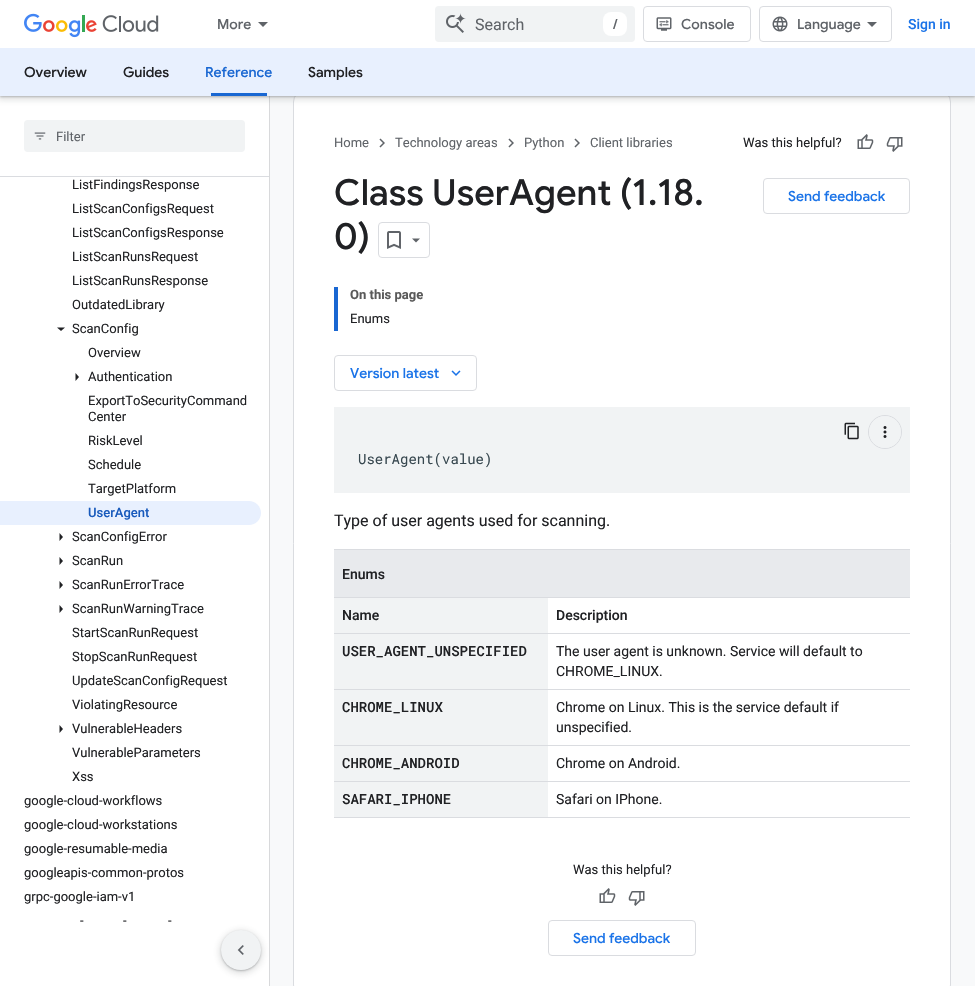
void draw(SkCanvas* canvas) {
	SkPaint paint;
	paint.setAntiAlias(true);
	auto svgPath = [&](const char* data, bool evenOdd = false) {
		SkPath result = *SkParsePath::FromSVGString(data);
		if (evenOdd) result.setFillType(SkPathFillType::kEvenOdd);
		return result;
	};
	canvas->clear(0xfff8f9fa);
	paint.setColor(0xff3c4043);
	paint.setMaskFilter(SkMaskFilter::MakeBlur(kNormal_SkBlurStyle, 0.5));
	canvas->drawRect(SkRect::MakeXYWH(0, 1, 269, 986), paint);
	paint.setMaskFilter(nullptr);
	paint.setColor(0xffffffff);
	canvas->drawRect(SkRect::MakeXYWH(0, 177, 269, 809), paint);
	canvas->drawRect(SkRect::MakeXYWH(0, 96, 269, 80), paint);
	canvas->drawRoundRect(SkRect::MakeXYWH(293.5, 90.5, 657, 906), 11.5, 11.5, paint);
	paint.setStroke(true);
	paint.setStrokeWidth(1);
	paint.setColor(0xffdadce0);
	canvas->drawRoundRect(SkRect::MakeXYWH(293.5, 90.5, 657, 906), 11.5, 11.5, paint);
	paint.setStroke(false);
	paint.setColor(0x263c4043);
	paint.setMaskFilter(SkMaskFilter::MakeBlur(kNormal_SkBlurStyle, 3));
	canvas->drawRect(SkRect::MakeXYWH(-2, -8, 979, 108), paint);
	paint.setMaskFilter(nullptr);
	paint.setColor(0x4d3c4043);
	paint.setMaskFilter(SkMaskFilter::MakeBlur(kNormal_SkBlurStyle, 1));
	canvas->drawRect(SkRect::MakeXYWH(0, -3, 975, 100), paint);
	paint.setMaskFilter(nullptr);
	paint.setColor(0xffffffff);
	canvas->drawRect(SkRect::MakeXYWH(0, 0, 975, 48), paint);
	canvas->drawImageRect(SkImages::DeferredFromEncodedData(SkData::MakeFromFileName("img1.png")), SkRect::MakeXYWH(24, 13, 135, 25), SkSamplingOptions());
	SkFont f1(fontMgr->matchFamilyStyle("Google Sans", SkFontStyle(500, SkFontStyle::kNormal_Width, SkFontStyle::kUpright_Slant)), 14);
	f1.setSubpixel(true);
	paint.setColor(0xff5f6368);
	canvas->drawString("More", 217, 29, f1, paint);
	canvas->drawPath(svgPath("M258 22H268L263 27Z"), paint);
	paint.setColor(0xfff1f3f4);
	canvas->drawRoundRect(SkRect::MakeXYWH(435, 6, 200, 36), 4, 4, paint);
	canvas->drawImageRect(SkImages::DeferredFromEncodedData(SkData::MakeFromFileName("img2.png")), SkRect::MakeXYWH(446, 13, 20, 20), SkSamplingOptions());
	SkFont f2(fontMgr->matchFamilyStyle("Roboto", SkFontStyle::Normal()), 16);
	f2.setSubpixel(true);
	paint.setColor(0xff5f6368);
	canvas->drawString("Search", 475, 30, f2, paint);
	paint.setColor(0xffffffff);
	canvas->drawRoundRect(SkRect::MakeXYWH(603, 12, 24, 24), 8, 8, paint);
	paint.setColor(0xff5f6368);
	canvas->drawString("/", 613, 29, f1, paint);
	paint.setStroke(true);
	paint.setColor(0xffdadce0);
	canvas->drawRoundRect(SkRect::MakeXYWH(643.5, 6.5, 107, 35), 3.5, 3.5, paint);
	canvas->drawImageRect(SkImages::DeferredFromEncodedData(SkData::MakeFromFileName("img3.png")), SkRect::MakeXYWH(656, 17, 16, 14), SkSamplingOptions());
	paint.setStroke(false);
	paint.setColor(0xff5f6368);
	canvas->drawString("Console", 681, 29, f1, paint);
	paint.setStroke(true);
	paint.setColor(0xffdadce0);
	canvas->drawRoundRect(SkRect::MakeXYWH(759.5, 6.5, 132, 35), 3.5, 3.5, paint);
	canvas->drawImageRect(SkImages::DeferredFromEncodedData(SkData::MakeFromFileName("img4.png")), SkRect::MakeXYWH(772, 16, 16, 16), SkSamplingOptions());
	paint.setStroke(false);
	paint.setColor(0xff5f6368);
	canvas->drawString("Language", 797, 29, f1, paint);
	canvas->drawPath(svgPath("M872 27L867 22H877Z"), paint);
	SkFont f3(fontMgr->matchFamilyStyle("Roboto", SkFontStyle(500, SkFontStyle::kNormal_Width, SkFontStyle::kUpright_Slant)), 14);
	f3.setSubpixel(true);
	paint.setColor(0xff1a73e8);
	canvas->drawString("Sign in", 908, 29, f3, paint);
	paint.setColor(0xffe8f0fe);
	canvas->drawRect(SkRect::MakeXYWH(0, 48, 975, 48), paint);
	paint.setColor(0xff202124);
	canvas->drawString("Overview", 24, 77, f1, paint);
	canvas->drawString("Guides", 123, 77, f1, paint);
	paint.setColor(0xff1967d2);
	canvas->drawString("Reference", 205, 77, f1, paint);
	canvas->drawRect(SkRect::MakeXYWH(211, 93, 56, 3), paint);
	paint.setColor(0xff202124);
	canvas->drawString("Samples", 308, 77, f1, paint);
	paint.setColor(0xffdadce0);
	canvas->drawRect(SkRect::MakeXYWH(0, 176, 269, 1), paint);
	paint.setColor(0xfff1f3f4);
	canvas->drawRoundRect(SkRect::MakeXYWH(24, 120, 221, 32), 4, 4, paint);
	canvas->drawImageRect(SkImages::DeferredFromEncodedData(SkData::MakeFromFileName("img5.png")), SkRect::MakeXYWH(34, 132, 12, 8), SkSamplingOptions());
	SkFont f4(fontMgr->matchFamilyStyle("Roboto", SkFontStyle::Normal()), 13);
	f4.setSubpixel(true);
	paint.setColor(0xff5f6368);
	canvas->drawString("Filter", 56, 141, f4, paint);
	paint.setColor(0xff202124);
	canvas->drawString("ListFindingsResponse", 72, 189, f4, paint);
	canvas->drawString("ListScanConfigsRequest", 72, 213, f4, paint);
	canvas->drawString("ListScanConfigsResponse", 72, 237, f4, paint);
	canvas->drawString("ListScanRunsRequest", 72, 261, f4, paint);
	canvas->drawString("ListScanRunsResponse", 72, 285, f4, paint);
	canvas->drawString("OutdatedLibrary", 72, 309, f4, paint);
	canvas->drawPath(svgPath("M57 327.5H65L61 331Z"), paint);
	canvas->drawString("ScanConfig", 72, 333, f4, paint);
	canvas->drawString("Overview", 88, 357, f4, paint);
	canvas->drawPath(svgPath("M75.5 381V373L79 377Z"), paint);
	canvas->drawString("Authentication", 88, 381, f4, paint);
	canvas->drawString("ExportToSecurityCommand", 88, 405, f4, paint);
	canvas->drawString("Center", 88, 421, f4, paint);
	canvas->drawString("RiskLevel", 88, 445, f4, paint);
	canvas->drawString("Schedule", 88, 469, f4, paint);
	canvas->drawString("TargetPlatform", 88, 493, f4, paint);
	paint.setColor(0xffe8f0fe);
	canvas->drawPath(svgPath("M0 501H249C255.5 501 261 506.5 261 513C261 519.5 255.5 525 249 525H0Z"), paint);
	SkFont f5(fontMgr->matchFamilyStyle("Roboto", SkFontStyle(500, SkFontStyle::kNormal_Width, SkFontStyle::kUpright_Slant)), 13);
	f5.setSubpixel(true);
	paint.setColor(0xff185abc);
	canvas->drawString("UserAgent", 88, 517, f5, paint);
	paint.setColor(0xff202124);
	canvas->drawPath(svgPath("M59.5 541V533L63 537Z"), paint);
	canvas->drawString("ScanConfigError", 72, 541, f4, paint);
	canvas->drawPath(svgPath("M59.5 565V557L63 561Z"), paint);
	canvas->drawString("ScanRun", 72, 565, f4, paint);
	canvas->drawPath(svgPath("M59.5 589V581L63 585Z"), paint);
	canvas->drawString("ScanRunErrorTrace", 72, 589, f4, paint);
	canvas->drawPath(svgPath("M59.5 613V605L63 609Z"), paint);
	canvas->drawString("ScanRunWarningTrace", 72, 613, f4, paint);
	canvas->drawString("StartScanRunRequest", 72, 637, f4, paint);
	canvas->drawString("StopScanRunRequest", 72, 661, f4, paint);
	canvas->drawString("UpdateScanConfigRequest", 72, 685, f4, paint);
	canvas->drawString("ViolatingResource", 72, 709, f4, paint);
	canvas->drawPath(svgPath("M59.5 733V725L63 729Z"), paint);
	canvas->drawString("VulnerableHeaders", 72, 733, f4, paint);
	canvas->drawString("VulnerableParameters", 72, 757, f4, paint);
	canvas->drawString("Xss", 72, 781, f4, paint);
	canvas->drawString("google-cloud-workflows", 24, 805, f4, paint);
	canvas->drawString("google-cloud-workstations", 24, 829, f4, paint);
	canvas->drawString("google-resumable-media", 24, 853, f4, paint);
	canvas->drawString("googleapis-common-protos", 24, 877, f4, paint);
	canvas->drawString("grpc-google-iam-v1", 24, 901, f4, paint);
	canvas->drawString("-", 80, 925, f4, paint);
	canvas->drawString("-", 123, 925, f4, paint);
	canvas->drawString("-", 168, 925, f4, paint);
	paint.setColor(0xff5f6368);
	canvas->drawString("Home", 334, 147, f4, paint);
	canvas->drawImageRect(SkImages::DeferredFromEncodedData(SkData::MakeFromFileName("img6.png")), SkRect::MakeXYWH(379, 138, 6, 10), SkSamplingOptions());
	canvas->drawString("Technology areas", 395, 147, f4, paint);
	canvas->drawImageRect(SkImages::DeferredFromEncodedData(SkData::MakeFromFileName("img6.png")), SkRect::MakeXYWH(508, 138, 6, 10), SkSamplingOptions());
	canvas->drawString("Python", 524, 147, f4, paint);
	canvas->drawImageRect(SkImages::DeferredFromEncodedData(SkData::MakeFromFileName("img6.png")), SkRect::MakeXYWH(574, 138, 6, 10), SkSamplingOptions());
	canvas->drawString("Client libraries", 590, 147, f4, paint);
	paint.setColor(0xff202124);
	canvas->drawString("Was this helpful?", 743, 147, f4, paint);
	canvas->drawImageRect(SkImages::DeferredFromEncodedData(SkData::MakeFromFileName("img7.png")), SkRect::MakeXYWH(857, 134, 17, 15), SkSamplingOptions());
	canvas->drawImageRect(SkImages::DeferredFromEncodedData(SkData::MakeFromFileName("img8.png")), SkRect::MakeXYWH(886, 137, 17, 15), SkSamplingOptions());
	SkFont f6(fontMgr->matchFamilyStyle("Google Sans", SkFontStyle(500, SkFontStyle::kNormal_Width, SkFontStyle::kUpright_Slant)), 36);
	f6.setSubpixel(true);
	canvas->drawString("Class UserAgent (1.18.", 334, 205, f6, paint);
	canvas->drawString("0)", 334, 249, f6, paint);
	paint.setStroke(true);
	paint.setColor(0xffdadce0);
	canvas->drawRoundRect(SkRect::MakeXYWH(378.5, 222.5, 51, 35), 3.5, 3.5, paint);
	canvas->drawImageRect(SkImages::DeferredFromEncodedData(SkData::MakeFromFileName("img9.png")), SkRect::MakeXYWH(387, 231, 14, 18), SkSamplingOptions());
	paint.setStroke(false);
	paint.setColor(0xff5f6368);
	canvas->drawPath(svgPath("M412 238.5H420L416 242.5Z"), paint);
	paint.setStroke(true);
	paint.setColor(0xffdadce0);
	canvas->drawRoundRect(SkRect::MakeXYWH(763.5, 178.5, 146, 35), 3.5, 3.5, paint);
	paint.setStroke(false);
	paint.setColor(0xff1a73e8);
	canvas->drawString("Send feedback", 788, 201, f1, paint);
	paint.setColor(0xff1967d2);
	canvas->drawRect(SkRect::MakeXYWH(334, 287, 4, 44), paint);
	SkFont f7(fontMgr->matchFamilyStyle("Roboto", SkFontStyle::Bold()), 13);
	f7.setSubpixel(true);
	paint.setColor(0xff595959);
	canvas->drawString("On this page", 350, 299, f7, paint);
	paint.setColor(0xff202124);
	canvas->drawString("Enums", 350, 323, f4, paint);
	paint.setStroke(true);
	paint.setColor(0xffdadce0);
	canvas->drawRoundRect(SkRect::MakeXYWH(334.5, 355.5, 142, 35), 3.5, 3.5, paint);
	paint.setStroke(false);
	paint.setColor(0xff1a73e8);
	canvas->drawString("Version latest", 350, 378, f1, paint);
	canvas->drawImageRect(SkImages::DeferredFromEncodedData(SkData::MakeFromFileName("img10.png")), SkRect::MakeXYWH(451, 370, 10, 6), SkSamplingOptions());
	paint.setColor(0xfff1f3f4);
	canvas->drawRect(SkRect::MakeXYWH(334, 407, 576, 86), paint);
	canvas->drawImageRect(SkImages::DeferredFromEncodedData(SkData::MakeFromFileName("img11.png")), SkRect::MakeXYWH(844, 422, 15, 18), SkSamplingOptions());
	paint.setStroke(true);
	paint.setColor(0xffdadce0);
	canvas->drawCircle(885, 432, 16.5, paint);
	paint.setStroke(false);
	paint.setColor(0xfff1f3f4);
	canvas->drawCircle(885, 432, 16, paint);
	canvas->drawImageRect(SkImages::DeferredFromEncodedData(SkData::MakeFromFileName("img12.png")), SkRect::MakeXYWH(883, 426, 4, 12), SkSamplingOptions());
	SkFont f8(fontMgr->matchFamilyStyle("Roboto Mono", SkFontStyle::Normal()), 14);
	f8.setSubpixel(true);
	paint.setColor(0xff37474f);
	canvas->drawString("UserAgent(value)", 358, 464, f8, paint);
	paint.setColor(0xff202124);
	canvas->drawString("Type of user agents used for scanning.", 334, 526, f2, paint);
	paint.setColor(0xffdadce0);
	canvas->drawRect(SkRect::MakeXYWH(334, 549, 576, 1), paint);
	canvas->drawRect(SkRect::MakeXYWH(334, 597, 576, 1), paint);
	paint.setColor(0xffe8eaed);
	canvas->drawRect(SkRect::MakeXYWH(334, 550, 576, 47), paint);
	paint.setColor(0xff202124);
	canvas->drawString("Enums", 342, 579, f3, paint);
	paint.setColor(0xffdadce0);
	canvas->drawRect(SkRect::MakeXYWH(334, 633, 576, 1), paint);
	paint.setColor(0xfff1f3f4);
	canvas->drawRect(SkRect::MakeXYWH(334, 598, 214, 35), paint);
	paint.setColor(0xff202124);
	canvas->drawString("Name", 342, 620, f3, paint);
	canvas->drawString("Description", 556, 620, f3, paint);
	paint.setColor(0xffdadce0);
	canvas->drawRect(SkRect::MakeXYWH(334, 689, 576, 1), paint);
	paint.setColor(0xfff1f3f4);
	canvas->drawRect(SkRect::MakeXYWH(334, 634, 214, 55), paint);
	SkFont f9(fontMgr->matchFamilyStyle("Roboto Mono", SkFontStyle(500, SkFontStyle::kNormal_Width, SkFontStyle::kUpright_Slant)), 14);
	f9.setSubpixel(true);
	paint.setColor(0xff202124);
	canvas->drawString("USER_AGENT_UNSPECIFIED", 342, 656, f9, paint);
	SkFont f10(fontMgr->matchFamilyStyle("Roboto", SkFontStyle::Normal()), 14);
	f10.setSubpixel(true);
	canvas->drawString("The user agent is unknown. Service will default to", 556, 656, f10, paint);
	canvas->drawString("CHROME_LINUX.", 556, 676, f10, paint);
	paint.setColor(0xffdadce0);
	canvas->drawRect(SkRect::MakeXYWH(334, 745, 576, 1), paint);
	paint.setColor(0xfff1f3f4);
	canvas->drawRect(SkRect::MakeXYWH(334, 690, 214, 55), paint);
	paint.setColor(0xff202124);
	canvas->drawString("CHROME_LINUX", 342, 712, f9, paint);
	canvas->drawString("Chrome on Linux. This is the service default if", 556, 712, f10, paint);
	canvas->drawString("unspecified.", 556, 732, f10, paint);
	paint.setColor(0xffdadce0);
	canvas->drawRect(SkRect::MakeXYWH(334, 781, 576, 1), paint);
	paint.setColor(0xfff1f3f4);
	canvas->drawRect(SkRect::MakeXYWH(334, 746, 214, 35), paint);
	paint.setColor(0xff202124);
	canvas->drawString("CHROME_ANDROID", 342, 768, f9, paint);
	canvas->drawString("Chrome on Android.", 556, 768, f10, paint);
	paint.setColor(0xffdadce0);
	canvas->drawRect(SkRect::MakeXYWH(334, 817, 576, 1), paint);
	paint.setColor(0xfff1f3f4);
	canvas->drawRect(SkRect::MakeXYWH(334, 782, 214, 35), paint);
	paint.setColor(0xff202124);
	canvas->drawString("SAFARI_IPHONE", 342, 804, f9, paint);
	canvas->drawString("Safari on IPhone.", 556, 804, f10, paint);
	canvas->drawString("Was this helpful?", 573, 874, f4, paint);
	canvas->drawImageRect(SkImages::DeferredFromEncodedData(SkData::MakeFromFileName("img7.png")), SkRect::MakeXYWH(599, 888, 17, 15), SkSamplingOptions());
	canvas->drawImageRect(SkImages::DeferredFromEncodedData(SkData::MakeFromFileName("img8.png")), SkRect::MakeXYWH(628, 891, 17, 15), SkSamplingOptions());
	paint.setStroke(true);
	paint.setColor(0xffdadce0);
	canvas->drawRoundRect(SkRect::MakeXYWH(548.5, 920.5, 147, 35), 3.5, 3.5, paint);
	paint.setStroke(false);
	paint.setColor(0xff1a73e8);
	canvas->drawString("Send feedback", 573, 943, f1, paint);
	paint.setColor(0x263c4043);
	paint.setMaskFilter(SkMaskFilter::MakeBlur(kNormal_SkBlurStyle, 3));
	canvas->drawRoundRect(SkRect::MakeXYWH(219, 930, 44, 44), 22, 22, paint);
	paint.setMaskFilter(nullptr);
	paint.setColor(0x4d3c4043);
	paint.setMaskFilter(SkMaskFilter::MakeBlur(kNormal_SkBlurStyle, 1));
	canvas->drawRoundRect(SkRect::MakeXYWH(221, 931, 40, 40), 20, 20, paint);
	paint.setMaskFilter(nullptr);
	paint.setColor(0xfff1f3f4);
	canvas->drawCircle(241, 950, 20, paint);
	canvas->drawImageRect(SkImages::DeferredFromEncodedData(SkData::MakeFromFileName("img13.png")), SkRect::MakeXYWH(237, 945, 7, 10), SkSamplingOptions());
}
